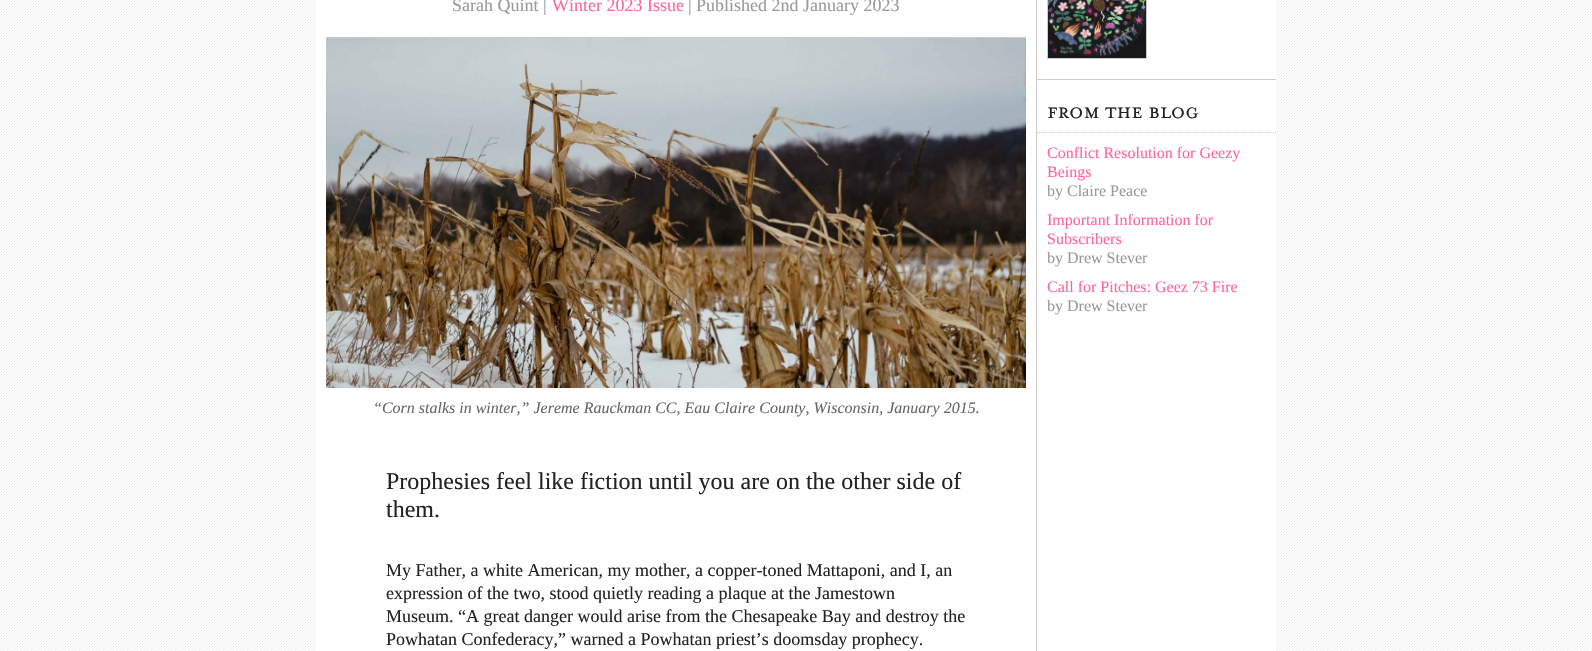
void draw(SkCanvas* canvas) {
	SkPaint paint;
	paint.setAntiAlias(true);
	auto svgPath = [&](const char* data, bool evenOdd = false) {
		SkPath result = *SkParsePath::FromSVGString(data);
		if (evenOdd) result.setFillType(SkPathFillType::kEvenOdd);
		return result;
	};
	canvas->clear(0xffffffff);
	canvas->drawImageRect(SkImages::DeferredFromEncodedData(SkData::MakeFromFileName("img1.png")), SkRect::MakeXYWH(0, 0, 1592, 651), SkSamplingOptions());
	paint.setColor(0xffffffff);
	canvas->drawRect(SkRect::MakeXYWH(316, 0, 960, 651), paint);
	paint.setColor(0xffcccccc);
	canvas->drawRect(SkRect::MakeXYWH(1036, 0, 1, 651), paint);
	canvas->drawRect(SkRect::MakeXYWH(326, 37, 700, 1), paint);
	SkFont f1(fontMgr->matchFamilyStyle("Liberation Serif", SkFontStyle::Normal()), 18);
	f1.setSubpixel(true);
	paint.setColor(0xff999999);
	canvas->drawString("Sarah Quint |", 452, 11, f1, paint);
	paint.setColor(0xffff6699);
	canvas->drawString("Winter 2023 Issue", 552, 11, f1, paint);
	paint.setColor(0xff999999);
	canvas->drawString("| Published 2nd January 2023", 688, 11, f1, paint);
	canvas->drawImageRect(SkImages::DeferredFromEncodedData(SkData::MakeFromFileName("img2.png")), SkRect::MakeXYWH(326, 38, 700, 350), SkSamplingOptions());
	SkFont f2(fontMgr->matchFamilyStyle("Liberation Serif", SkFontStyle::Italic()), 16);
	f2.setSubpixel(true);
	paint.setColor(0xff666666);
	canvas->drawString("“Corn stalks in winter,” Jereme Rauckman CC, Eau Claire County, Wisconsin, January 2015.", 373, 413, f2, paint);
	SkFont f3(fontMgr->matchFamilyStyle("Liberation Serif", SkFontStyle::Normal()), 24);
	f3.setSubpixel(true);
	paint.setColor(0xff222222);
	canvas->drawString("Prophesies feel like fiction until you are on the other side of", 386, 489, f3, paint);
	canvas->drawString("them.", 386, 517, f3, paint);
	canvas->drawString("My Father, a white American, my mother, a copper-toned Mattaponi, and I, an", 386, 576, f1, paint);
	canvas->drawString("expression of the two, stood quietly reading a plaque at the Jamestown", 386, 599, f1, paint);
	canvas->drawString("Museum. “A great danger would arise from the Chesapeake Bay and destroy the", 386, 622, f1, paint);
	canvas->drawString("Powhatan Confederacy,” warned a Powhatan priest’s doomsday prophecy.", 386, 645, f1, paint);
	paint.setColor(0xffcccccc);
	canvas->drawRect(SkRect::MakeXYWH(1037, 79, 239, 1), paint);
	paint.setStroke(true);
	paint.setStrokeWidth(1);
	canvas->drawRect(SkRect::MakeXYWH(1047.5, -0.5, 99, 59), paint);
	canvas->drawImageRect(SkImages::DeferredFromEncodedData(SkData::MakeFromFileName("img3.png")), SkRect::MakeXYWH(1048, 0, 98, 58), SkSamplingOptions());
	paint.setPathEffect(SkDashPathEffect::Make({{1, 1}}, 0));
	canvas->drawPath(svgPath("M1037 132.5H1276"), paint);
	paint.setPathEffect(nullptr);
	SkFont f4(fontMgr->matchFamilyStyle("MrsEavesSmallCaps", SkFontStyle::Normal()), 24);
	f4.setSubpixel(true);
	paint.setStroke(false);
	paint.setColor(0xff222222);
	canvas->drawString("from the blog", 1047, 118, f4, paint);
	SkFont f5(fontMgr->matchFamilyStyle("Liberation Serif", SkFontStyle::Normal()), 16);
	f5.setSubpixel(true);
	paint.setColor(0xffff6699);
	canvas->drawString("Conflict Resolution for Geezy", 1047, 158, f5, paint);
	canvas->drawString("Beings", 1047, 177, f5, paint);
	paint.setColor(0xff999999);
	canvas->drawString("by Claire Peace", 1047, 196, f5, paint);
	paint.setColor(0xffff6699);
	canvas->drawString("Important Information for", 1047, 225, f5, paint);
	canvas->drawString("Subscribers", 1047, 244, f5, paint);
	paint.setColor(0xff999999);
	canvas->drawString("by Drew Stever", 1047, 263, f5, paint);
	paint.setColor(0xffff6699);
	canvas->drawString("Call for Pitches: Geez 73 Fire", 1047, 292, f5, paint);
	paint.setColor(0xff999999);
	canvas->drawString("by Drew Stever", 1047, 311, f5, paint);
}
